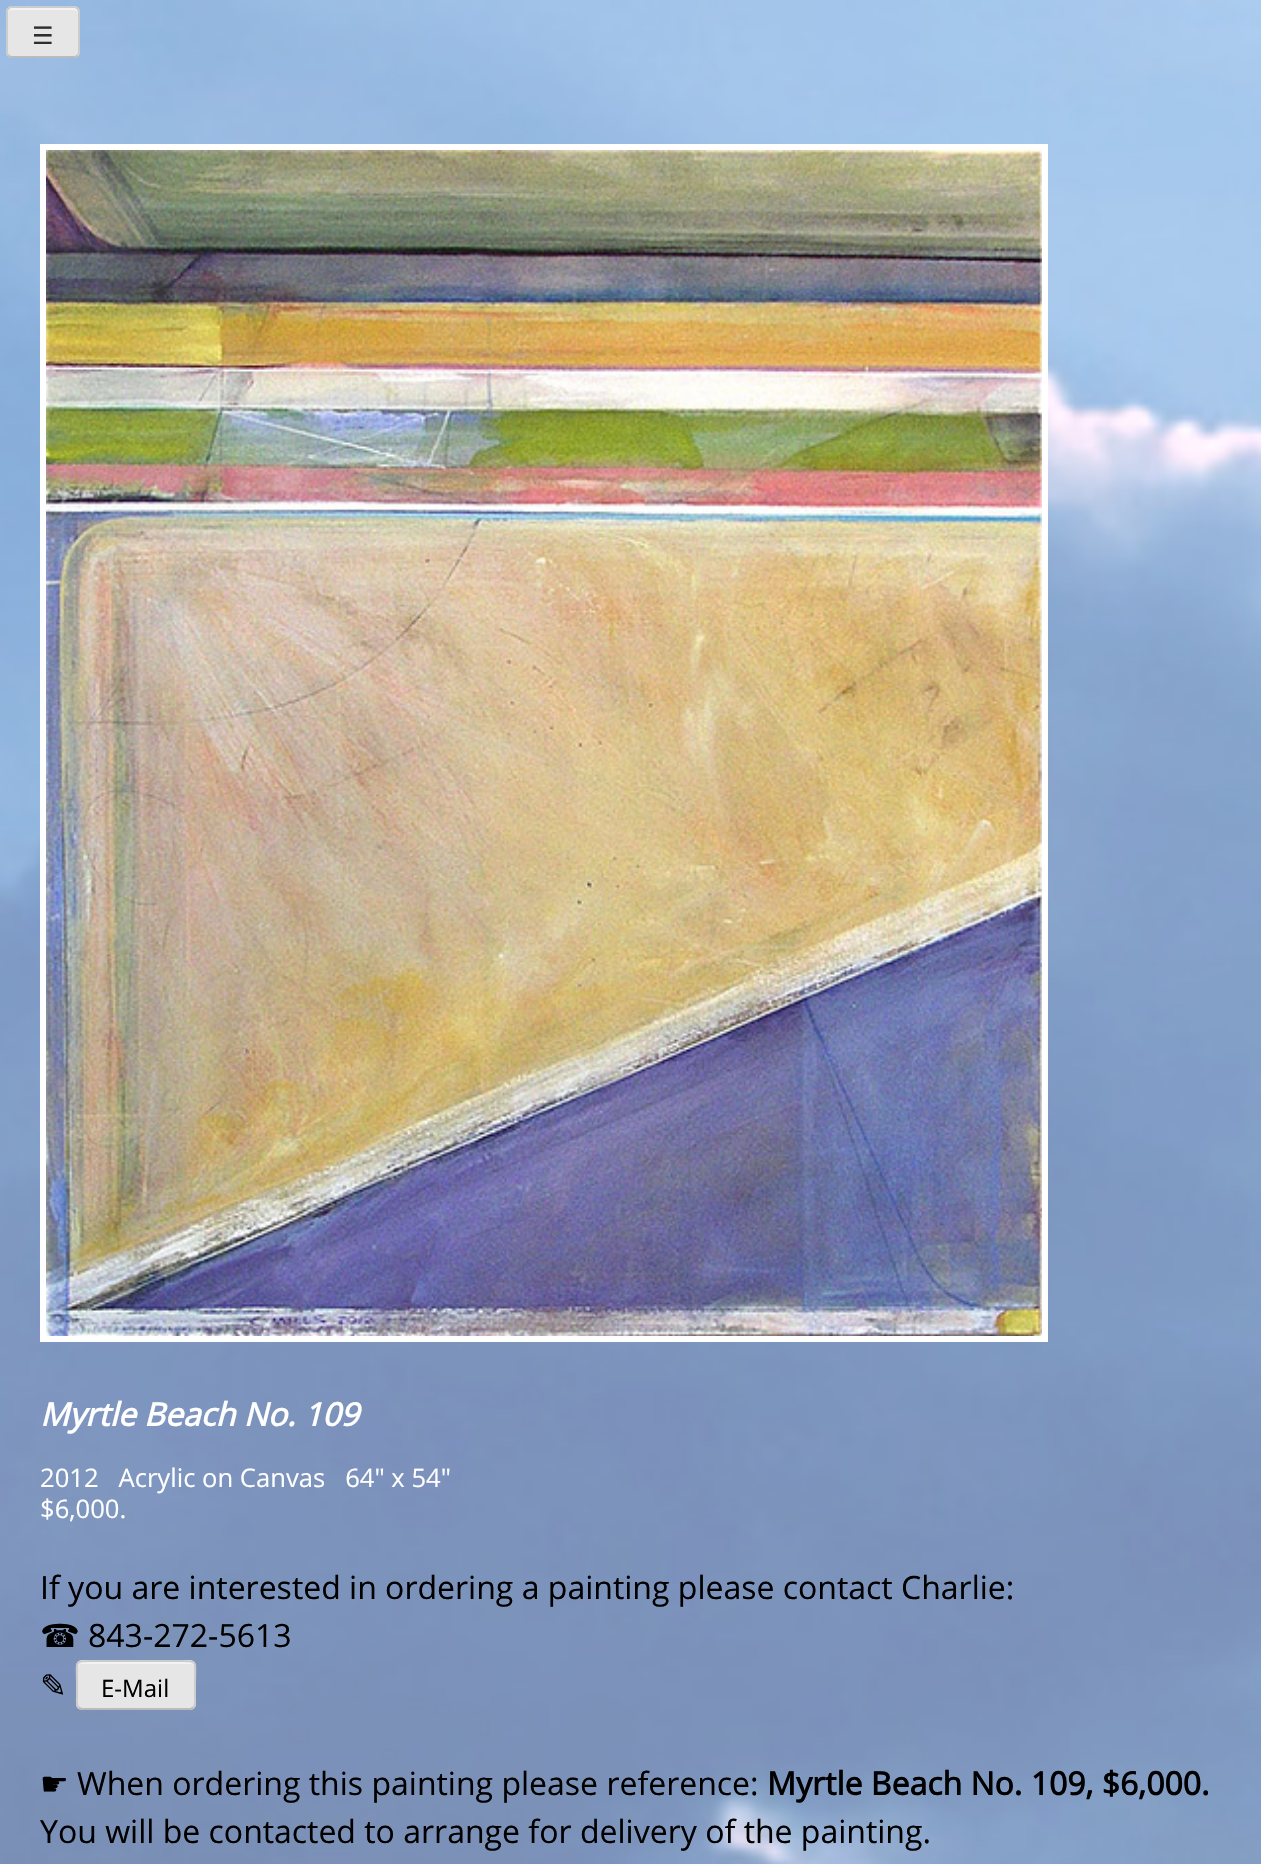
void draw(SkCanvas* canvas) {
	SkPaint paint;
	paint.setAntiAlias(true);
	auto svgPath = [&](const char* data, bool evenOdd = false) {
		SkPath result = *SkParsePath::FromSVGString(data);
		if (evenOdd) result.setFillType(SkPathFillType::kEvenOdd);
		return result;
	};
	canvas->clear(0xffffffff);
	canvas->drawImageRect(SkImages::DeferredFromEncodedData(SkData::MakeFromFileName("img1.png")), SkRect::MakeXYWH(0, 0, 1261, 1864), SkSamplingOptions());
	paint.setColor(0xffe6e6e6);
	canvas->drawRoundRect(SkRect::MakeXYWH(6, 6, 74, 52), 6, 6, paint);
	paint.setColor(0xfff3f3f3);
	canvas->drawPath(svgPath("M12 10H74C76 10 78 12 78 14C78 5 71 8 64 8H22C15 8 8 5 8 14C8 12 10 10 12 10Z"), paint);
	paint.setStroke(true);
	paint.setStrokeWidth(2);
	paint.setColor(0xffbbbbbb);
	canvas->drawPath(svgPath("M77.5 55.5C76.5 56.5 75.5 57 74 57H12C10.5 57 9.5 56.5 8.5 55.5"), paint);
	paint.setColor(0xffcccccc);
	canvas->drawPath(svgPath("M8.5 55.5C7.5 54.5 7 53.5 7 52V12C7 10.5 7.5 9.5 8.5 8.5C9.5 7.5 10.5 7 12 7H74C75.5 7 76.5 7.5 77.5 8.5C78.5 9.5 79 10.5 79 12V52C79 53.5 78.5 54.5 77.5 55.5"), paint);
	SkFont f1(fontMgr->matchFamilyStyle("DejaVu Sans", SkFontStyle::Normal()), 24);
	f1.setSubpixel(true);
	paint.setStroke(false);
	paint.setColor(0xff2e2e2e);
	canvas->drawString("☰", 32, 44, f1, paint);
	paint.setStroke(true);
	paint.setStrokeWidth(6);
	paint.setColor(0xffffffff);
	canvas->drawRect(SkRect::MakeXYWH(43, 147, 1002, 1192), paint);
	canvas->drawImageRect(SkImages::DeferredFromEncodedData(SkData::MakeFromFileName("img2.png")), SkRect::MakeXYWH(46, 150, 996, 1186), SkSamplingOptions());
	SkFont f2(fontMgr->matchFamilyStyle("Open Sans", SkFontStyle::BoldItalic()), 32);
	f2.setSubpixel(true);
	paint.setStroke(false);
	canvas->drawString("Myrtle Beach No. 109", 40, 1426, f2, paint);
	SkFont f3(fontMgr->matchFamilyStyle("Open Sans", SkFontStyle::Normal()), 25.6);
	f3.setSubpixel(true);
	canvas->drawString("2012   Acrylic on Canvas   64\" x 54\"", 40, 1487, f3, paint);
	canvas->drawString("$6,000.", 40, 1518, f3, paint);
	SkFont f4(fontMgr->matchFamilyStyle("Open Sans", SkFontStyle::Normal()), 32);
	f4.setSubpixel(true);
	paint.setColor(0xff000000);
	canvas->drawString("If you are interested in ordering a painting please contact Charlie:", 40, 1599, f4, paint);
	SkFont f5(fontMgr->matchFamilyStyle("DejaVu Sans", SkFontStyle::Normal()), 32);
	f5.setSubpixel(true);
	canvas->drawString("☎", 40, 1647, f5, paint);
	canvas->drawString("843-272-5613", 88, 1647, f4, paint);
	canvas->drawString("✎", 40, 1697, f5, paint);
	paint.setColor(0xffe6e6e6);
	canvas->drawRoundRect(SkRect::MakeXYWH(76, 1660, 120, 50), 6, 6, paint);
	paint.setColor(0xfff3f3f3);
	canvas->drawPath(svgPath("M82 1664H190C192 1664 194 1666 194 1668V1666C194 1664 192 1662 190 1662H82C80 1662 78 1664 78 1666V1668C78 1666 80 1664 82 1664Z"), paint);
	paint.setStroke(true);
	paint.setStrokeWidth(2);
	paint.setColor(0xffbbbbbb);
	canvas->drawPath(svgPath("M193.5 1707.5L190.5 1709H81.5L78.5 1707.5"), paint);
	paint.setColor(0xffcccccc);
	canvas->drawPath(svgPath("M78.5 1707.5C76 1705 77 1700.5 77 1697.5V1685C77 1657.5 72.5 1661 100 1661H172C199.5 1661 195 1657.5 195 1685V1697.5C195 1700.5 196 1705 193.5 1707.5"), paint);
	SkFont f6(fontMgr->matchFamilyStyle("Open Sans", SkFontStyle::Normal()), 24);
	f6.setSubpixel(true);
	paint.setStroke(false);
	paint.setColor(0xff000000);
	canvas->drawString("E-Mail", 101, 1697, f6, paint);
	canvas->drawString("☛", 40, 1795, f5, paint);
	canvas->drawString("When ordering this painting please reference:", 77, 1795, f4, paint);
	SkFont f7(fontMgr->matchFamilyStyle("Open Sans", SkFontStyle::Bold()), 32);
	f7.setSubpixel(true);
	canvas->drawString("Myrtle Beach No. 109, $6,000.", 767, 1795, f7, paint);
	canvas->drawString("You will be contacted to arrange for delivery of the painting.", 40, 1843, f4, paint);
}
